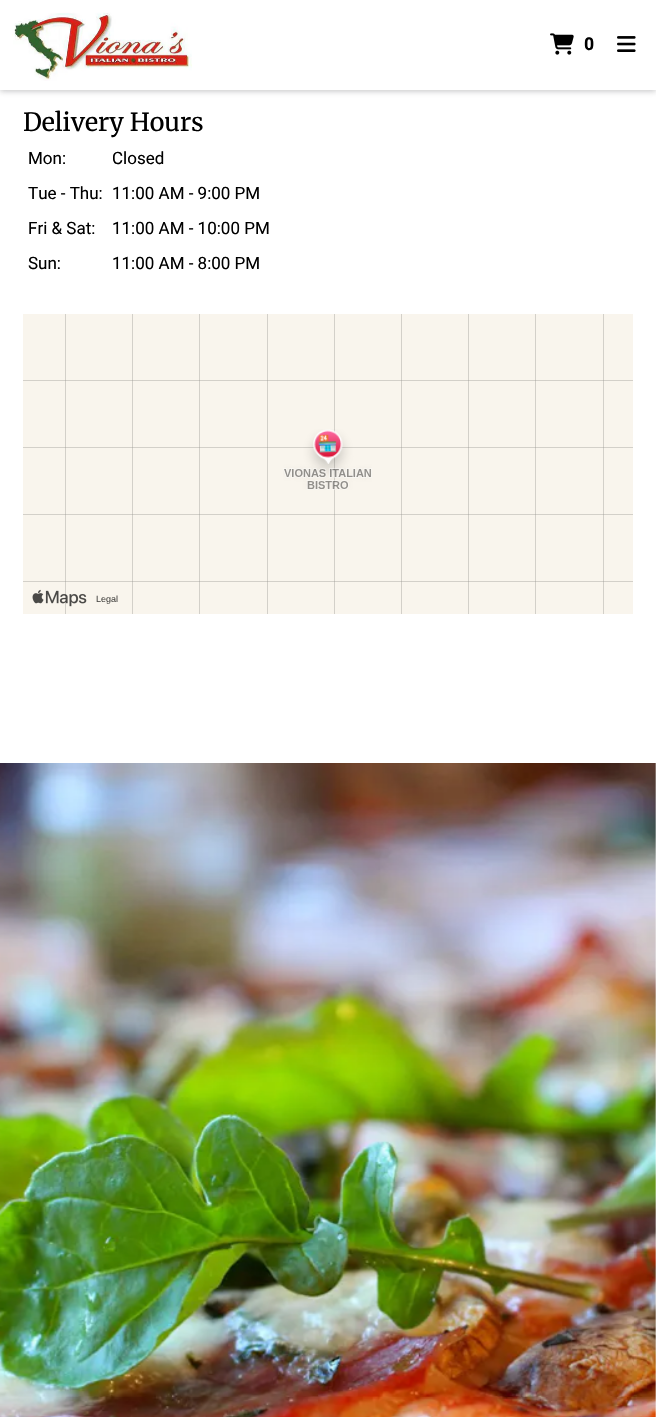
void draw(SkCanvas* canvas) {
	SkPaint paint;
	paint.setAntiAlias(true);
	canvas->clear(0xffffffff);
	paint.setColor(0x47202124);
	paint.setMaskFilter(SkMaskFilter::MakeBlur(kNormal_SkBlurStyle, 3));
	canvas->drawRect(SkRect::MakeXYWH(0, 1, 656, 90), paint);
	paint.setMaskFilter(nullptr);
	paint.setColor(0xffffffff);
	canvas->drawRect(SkRect::MakeXYWH(0, 0, 656, 90), paint);
	canvas->drawImageRect(SkImages::DeferredFromEncodedData(SkData::MakeFromFileName("img1.png")), SkRect::MakeXYWH(12, 12, 180, 69), SkSamplingOptions());
	canvas->drawImageRect(SkImages::DeferredFromEncodedData(SkData::MakeFromFileName("img2.png")), SkRect::MakeXYWH(550, 33, 24, 22), SkSamplingOptions());
	SkFont f1(fontMgr->matchFamilyStyle("Roboto", SkFontStyle::Bold()), 17);
	f1.setSubpixel(true);
	paint.setColor(0xff000000);
	canvas->drawString("0", 584, 50, f1, paint);
	canvas->drawImageRect(SkImages::DeferredFromEncodedData(SkData::MakeFromFileName("img3.png")), SkRect::MakeXYWH(617, 36, 19, 16), SkSamplingOptions());
	SkFont f2(fontMgr->matchFamilyStyle("Merriweather", SkFontStyle::Normal()), 25);
	f2.setSubpixel(true);
	canvas->drawString("Delivery Hours", 23, 131, f2, paint);
	SkFont f3(fontMgr->matchFamilyStyle("Roboto", SkFontStyle::Normal()), 17);
	f3.setSubpixel(true);
	canvas->drawString("Mon:", 28, 164, f3, paint);
	canvas->drawString("Closed", 112, 164, f3, paint);
	canvas->drawString("Tue - Thu:", 28, 199, f3, paint);
	canvas->drawString("11:00 AM - 9:00 PM", 112, 199, f3, paint);
	canvas->drawString("Fri & Sat:", 28, 234, f3, paint);
	canvas->drawString("11:00 AM - 10:00 PM", 112, 234, f3, paint);
	canvas->drawString("Sun:", 28, 269, f3, paint);
	canvas->drawString("11:00 AM - 8:00 PM", 112, 269, f3, paint);
	canvas->drawImageRect(SkImages::DeferredFromEncodedData(SkData::MakeFromFileName("img4.png")), SkRect::MakeXYWH(23, 314, 610, 300), SkSamplingOptions());
	canvas->drawImageRect(SkImages::DeferredFromEncodedData(SkData::MakeFromFileName("img5.png")), SkRect::MakeXYWH(283, 429, 89, 61), SkSamplingOptions());
	canvas->drawImageRect(SkImages::DeferredFromEncodedData(SkData::MakeFromFileName("img6.png")), SkRect::MakeXYWH(32, 589, 55, 18), SkSamplingOptions());
	SkFont f4(fontMgr->matchFamilyStyle("Liberation Sans", SkFontStyle::Normal()), 9);
	f4.setSubpixel(true);
	paint.setColor(0xff4b4a47);
	canvas->drawString("Legal", 96, 602, f4, paint);
	canvas->drawImageRect(SkImages::DeferredFromEncodedData(SkData::MakeFromFileName("img7.png")), SkRect::MakeXYWH(0, 763, 656, 654), SkSamplingOptions());
}
